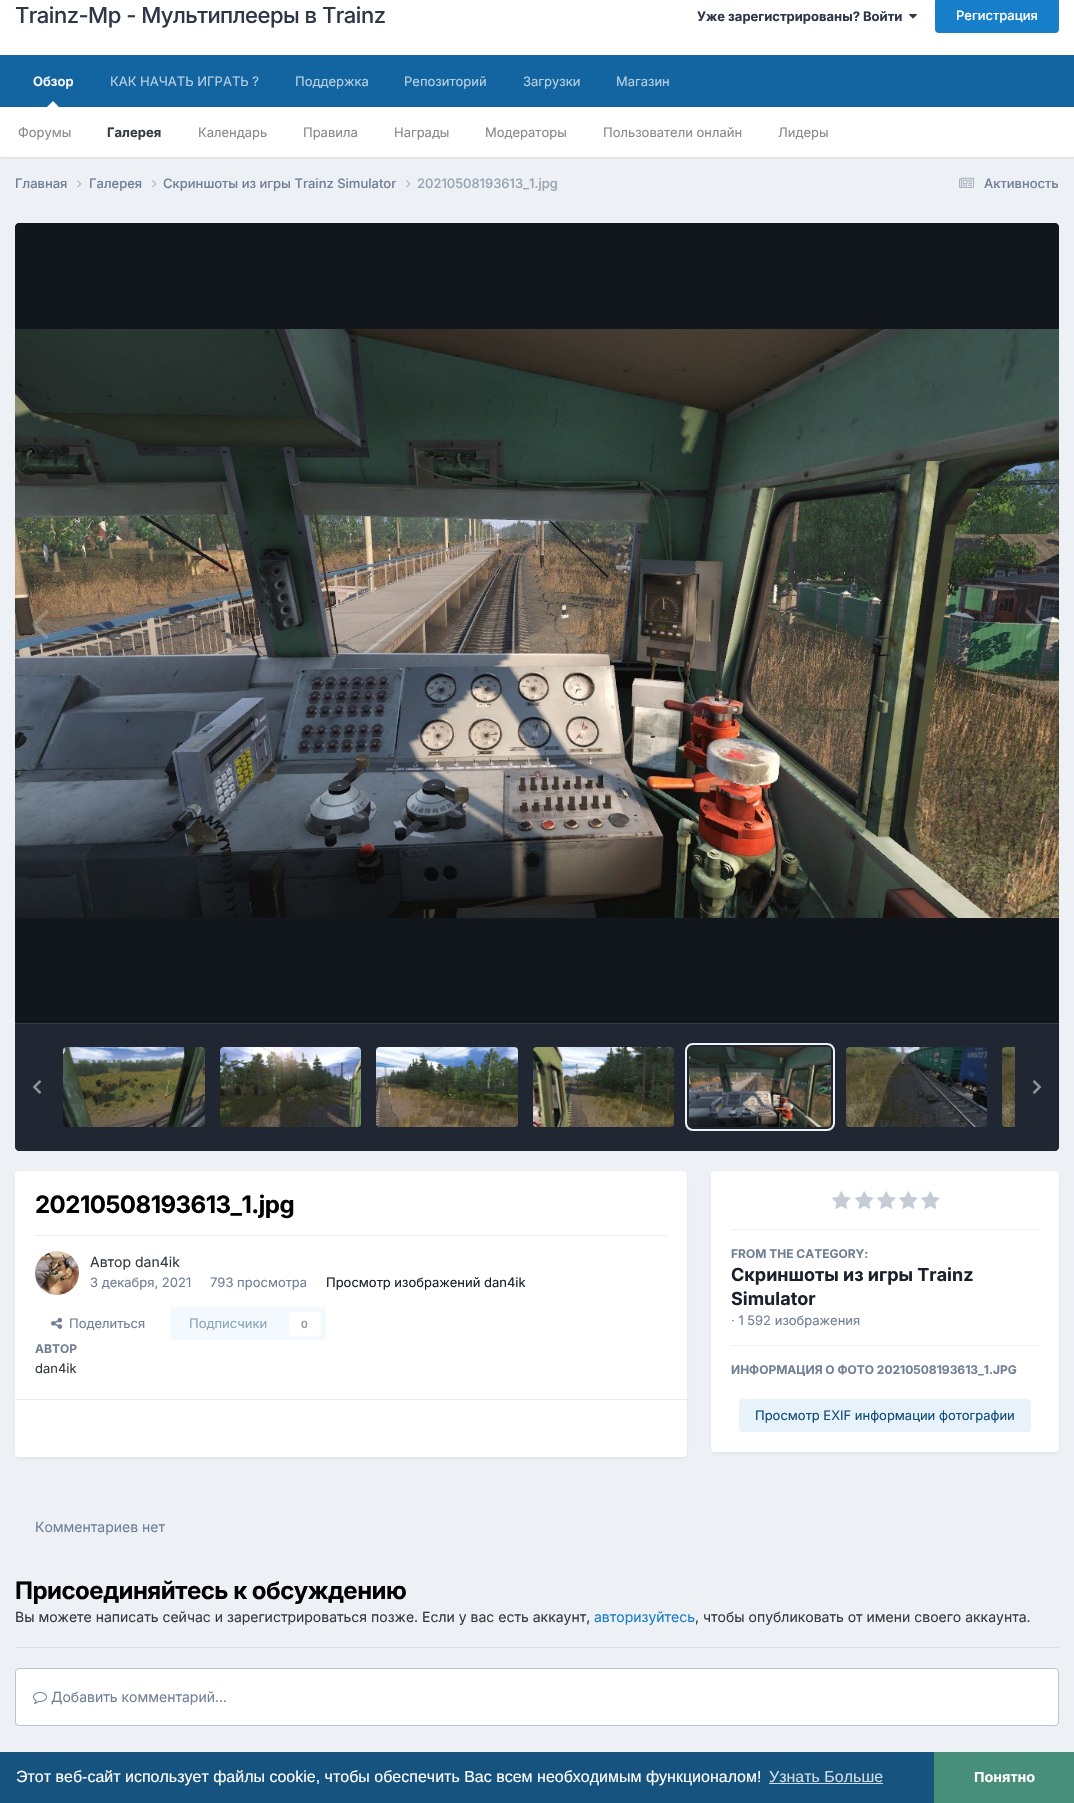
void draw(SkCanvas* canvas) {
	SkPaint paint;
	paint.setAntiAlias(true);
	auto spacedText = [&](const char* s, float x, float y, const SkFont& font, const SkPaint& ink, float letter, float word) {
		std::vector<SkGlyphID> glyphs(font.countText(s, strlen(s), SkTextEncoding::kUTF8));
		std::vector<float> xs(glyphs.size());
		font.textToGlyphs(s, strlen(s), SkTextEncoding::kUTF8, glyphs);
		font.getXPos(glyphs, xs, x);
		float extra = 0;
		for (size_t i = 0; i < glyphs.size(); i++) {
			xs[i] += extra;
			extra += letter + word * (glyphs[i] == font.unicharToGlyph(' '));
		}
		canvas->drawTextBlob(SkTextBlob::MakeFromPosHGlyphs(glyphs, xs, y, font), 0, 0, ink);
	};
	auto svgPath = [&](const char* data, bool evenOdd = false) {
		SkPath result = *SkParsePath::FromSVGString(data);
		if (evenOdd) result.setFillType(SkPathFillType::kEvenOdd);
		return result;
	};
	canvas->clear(0xffedf0f4);
	paint.setColor(0xffffffff);
	canvas->drawRect(SkRect::MakeXYWH(0, 0, 1074, 55), paint);
	SkFont f1(fontMgr->matchFamilyStyle("Inter", SkFontStyle(500, SkFontStyle::kNormal_Width, SkFontStyle::kUpright_Slant)), 22);
	f1.setSubpixel(true);
	paint.setColor(0xff2d3748);
	spacedText("Trainz-Mp - Мультиплееры в Trainz", 15, 23, f1, paint, -0.5, 0);
	SkFont f2(fontMgr->matchFamilyStyle("Inter", SkFontStyle::Bold()), 13);
	f2.setSubpixel(true);
	canvas->drawString("Уже зарегистрированы? Войти", 697, 21, f2, paint);
	canvas->drawImageRect(SkImages::DeferredFromEncodedData(SkData::MakeFromFileName("img1.png")), SkRect::MakeXYWH(909, 14, 8, 5), SkSamplingOptions());
	paint.setColor(0xff177ec9);
	canvas->drawRoundRect(SkRect::MakeXYWH(935, -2, 124, 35), 4, 4, paint);
	SkFont f3(fontMgr->matchFamilyStyle("Inter", SkFontStyle(500, SkFontStyle::kNormal_Width, SkFontStyle::kUpright_Slant)), 13);
	f3.setSubpixel(true);
	paint.setColor(0xffffffff);
	canvas->drawString("Регистрация", 956, 20, f3, paint);
	paint.setColor(0xff1265a1);
	canvas->drawRect(SkRect::MakeXYWH(0, 55, 1074, 52), paint);
	SkFont f4(fontMgr->matchFamilyStyle("Inter", SkFontStyle(600, SkFontStyle::kNormal_Width, SkFontStyle::kUpright_Slant)), 13);
	f4.setSubpixel(true);
	paint.setColor(0xffffffff);
	canvas->drawString("Обзор", 33, 86, f4, paint);
	paint.setColor(0x1a000000);
	paint.setMaskFilter(SkMaskFilter::MakeBlur(kNormal_SkBlurStyle, 1));
	canvas->drawRect(SkRect::MakeXYWH(0, 108, 1074, 50), paint);
	paint.setMaskFilter(nullptr);
	paint.setColor(0xffffffff);
	canvas->drawPath(svgPath("M59 107H47L53 101Z"), paint);
	canvas->drawRect(SkRect::MakeXYWH(0, 107, 1074, 50), paint);
	SkFont f5(fontMgr->matchFamilyStyle("Inter", SkFontStyle::Normal()), 13);
	f5.setSubpixel(true);
	paint.setColor(0xff868a8d);
	canvas->drawString("Форумы", 18, 137, f5, paint);
	paint.setColor(0xff353c41);
	canvas->drawString("Галерея", 107, 137, f2, paint);
	paint.setColor(0xff868a8d);
	canvas->drawString("Календарь", 198, 137, f5, paint);
	canvas->drawString("Правила", 303, 137, f5, paint);
	canvas->drawString("Награды", 394, 137, f5, paint);
	canvas->drawString("Модераторы", 485, 137, f5, paint);
	canvas->drawString("Пользователи онлайн", 603, 137, f5, paint);
	canvas->drawString("Лидеры", 778, 137, f5, paint);
	paint.setColor(0xffb8d1e3);
	canvas->drawString("КАК НАЧАТЬ ИГРАТЬ ?", 110, 86, f5, paint);
	canvas->drawString("Поддержка", 295, 86, f5, paint);
	canvas->drawString("Репозиторий", 404, 86, f5, paint);
	canvas->drawString("Загрузки", 523, 86, f5, paint);
	canvas->drawString("Магазин", 616, 86, f5, paint);
	paint.setColor(0xff718096);
	canvas->drawString("Главная", 15, 188, f3, paint);
	canvas->drawImageRect(SkImages::DeferredFromEncodedData(SkData::MakeFromFileName("img2.png")), SkRect::MakeXYWH(77, 180, 5, 8), SkSamplingOptions());
	canvas->drawString("Галерея", 89, 188, f3, paint);
	canvas->drawImageRect(SkImages::DeferredFromEncodedData(SkData::MakeFromFileName("img2.png")), SkRect::MakeXYWH(152, 180, 5, 8), SkSamplingOptions());
	canvas->drawString("Скриншоты из игры Trainz Simulator", 163, 188, f3, paint);
	canvas->drawImageRect(SkImages::DeferredFromEncodedData(SkData::MakeFromFileName("img2.png")), SkRect::MakeXYWH(406, 180, 5, 8), SkSamplingOptions());
	paint.setColor(0xff96a2b2);
	canvas->drawString("20210508193613_1.jpg", 417, 188, f3, paint);
	canvas->drawImageRect(SkImages::DeferredFromEncodedData(SkData::MakeFromFileName("img3.png")), SkRect::MakeXYWH(959, 177, 15, 11), SkSamplingOptions());
	paint.setColor(0xff718096);
	canvas->drawString("Активность", 984, 188, f3, paint);
	paint.setColor(0xff2d3748);
	canvas->drawPath(svgPath("M19 223H1055C1057 223 1059 225 1059 227V1023H15V227C15 225 17 223 19 223Z"), paint);
	paint.setColor(0x99000000);
	canvas->drawPath(svgPath("M19 223H1055C1057 223 1059 225 1059 227V1023H15V227C15 225 17 223 19 223Z"), paint);
	canvas->drawImageRect(SkImages::DeferredFromEncodedData(SkData::MakeFromFileName("img4.png")), SkRect::MakeXYWH(15, 329, 1044, 589), SkSamplingOptions());
	canvas->drawImageRect(SkImages::DeferredFromEncodedData(SkData::MakeFromFileName("img5.png")), SkRect::MakeXYWH(31, 609, 18, 31), SkSamplingOptions());
	canvas->drawImageRect(SkImages::DeferredFromEncodedData(SkData::MakeFromFileName("img6.png")), SkRect::MakeXYWH(1025, 609, 18, 31), SkSamplingOptions());
	paint.setColor(0xff2d3748);
	canvas->drawPath(svgPath("M15 1023H1059V1147C1059 1149 1057 1151 1055 1151H19C17 1151 15 1149 15 1147Z"), paint);
	paint.setColor(0x4d000000);
	canvas->drawPath(svgPath("M15 1023H1059V1147C1059 1149 1057 1151 1055 1151H19C17 1151 15 1149 15 1147Z"), paint);
	paint.setColor(0xff363c47);
	canvas->drawRect(SkRect::MakeXYWH(15, 1023, 1044, 1), paint);
	canvas->drawImageRect(SkImages::DeferredFromEncodedData(SkData::MakeFromFileName("img7.png")), SkRect::MakeXYWH(63, 1047, 142, 80), SkSamplingOptions());
	canvas->drawImageRect(SkImages::DeferredFromEncodedData(SkData::MakeFromFileName("img8.png")), SkRect::MakeXYWH(220, 1047, 141, 80), SkSamplingOptions());
	canvas->drawImageRect(SkImages::DeferredFromEncodedData(SkData::MakeFromFileName("img9.png")), SkRect::MakeXYWH(376, 1047, 142, 80), SkSamplingOptions());
	canvas->drawImageRect(SkImages::DeferredFromEncodedData(SkData::MakeFromFileName("img10.png")), SkRect::MakeXYWH(533, 1047, 141, 80), SkSamplingOptions());
	paint.setStroke(true);
	paint.setStrokeWidth(2);
	paint.setColor(0xffedf2f7);
	canvas->drawRoundRect(SkRect::MakeXYWH(686, 1044, 148, 86), 7, 7, paint);
	canvas->drawImageRect(SkImages::DeferredFromEncodedData(SkData::MakeFromFileName("img11.png")), SkRect::MakeXYWH(689, 1047, 142, 80), SkSamplingOptions());
	canvas->drawImageRect(SkImages::DeferredFromEncodedData(SkData::MakeFromFileName("img12.png")), SkRect::MakeXYWH(846, 1047, 141, 80), SkSamplingOptions());
	canvas->drawImageRect(SkImages::DeferredFromEncodedData(SkData::MakeFromFileName("img13.png")), SkRect::MakeXYWH(1002, 1047, 13, 80), SkSamplingOptions());
	canvas->drawImageRect(SkImages::DeferredFromEncodedData(SkData::MakeFromFileName("img14.png")), SkRect::MakeXYWH(33, 1080, 9, 14), SkSamplingOptions());
	canvas->drawImageRect(SkImages::DeferredFromEncodedData(SkData::MakeFromFileName("img15.png")), SkRect::MakeXYWH(1032, 1080, 9, 14), SkSamplingOptions());
	paint.setStroke(false);
	paint.setColor(0x1a2d3748);
	paint.setMaskFilter(SkMaskFilter::MakeBlur(kNormal_SkBlurStyle, 2));
	canvas->drawRoundRect(SkRect::MakeXYWH(16, 1174, 670, 284), 3, 3, paint);
	paint.setMaskFilter(nullptr);
	paint.setColor(0xffffffff);
	canvas->drawRoundRect(SkRect::MakeXYWH(15, 1171, 672, 286), 4, 4, paint);
	SkFont f6(fontMgr->matchFamilyStyle("Inter", SkFontStyle::Bold()), 24);
	f6.setSubpixel(true);
	paint.setColor(0xff000000);
	spacedText("20210508193613_1.jpg", 35, 1213, f6, paint, -0.5, 0);
	paint.setColor(0xffefeff0);
	canvas->drawRect(SkRect::MakeXYWH(35, 1235, 632, 1), paint);
	canvas->drawImageRect(SkImages::DeferredFromEncodedData(SkData::MakeFromFileName("img16.png")), SkRect::MakeXYWH(35, 1251, 44, 44), SkSamplingOptions());
	SkFont f7(fontMgr->matchFamilyStyle("Inter", SkFontStyle::Normal()), 14);
	f7.setSubpixel(true);
	paint.setColor(0xff353c41);
	canvas->drawString("Автор dan4ik", 90, 1267, f7, paint);
	paint.setColor(0xff718096);
	canvas->drawString("3 декабря, 2021", 90, 1287, f5, paint);
	canvas->drawString("793 просмотра", 210, 1287, f5, paint);
	paint.setColor(0xff1a202c);
	canvas->drawString("Просмотр изображений dan4ik", 326, 1287, f5, paint);
	canvas->drawImageRect(SkImages::DeferredFromEncodedData(SkData::MakeFromFileName("img17.png")), SkRect::MakeXYWH(51, 1317, 12, 12), SkSamplingOptions());
	paint.setColor(0xff718096);
	canvas->drawString("Поделиться", 69, 1328, f5, paint);
	paint.setColor(0xfff4f9fd);
	canvas->drawRoundRect(SkRect::MakeXYWH(170, 1307, 156, 33), 4, 4, paint);
	paint.setColor(0xff87a6bc);
	canvas->drawString("Подписчики", 189, 1328, f5, paint);
	paint.setColor(0xffffffff);
	canvas->drawRoundRect(SkRect::MakeXYWH(289, 1312, 32, 24), 4, 4, paint);
	SkFont f8(fontMgr->matchFamilyStyle("Inter", SkFontStyle::Bold()), 10);
	f8.setSubpixel(true);
	paint.setColor(0xff9a9ea0);
	canvas->drawString("0", 301, 1328, f8, paint);
	SkFont f9(fontMgr->matchFamilyStyle("Inter", SkFontStyle::Bold()), 12);
	f9.setSubpixel(true);
	paint.setColor(0xff718096);
	canvas->drawString("АВТОР", 35, 1353, f9, paint);
	paint.setColor(0xff353c41);
	canvas->drawString("dan4ik", 35, 1373, f5, paint);
	paint.setColor(0xffebecec);
	canvas->drawRect(SkRect::MakeXYWH(15, 1399, 672, 1), paint);
	paint.setColor(0x1a2d3748);
	paint.setMaskFilter(SkMaskFilter::MakeBlur(kNormal_SkBlurStyle, 2));
	canvas->drawRoundRect(SkRect::MakeXYWH(712, 1174, 346, 279), 3, 3, paint);
	paint.setMaskFilter(nullptr);
	paint.setColor(0xffffffff);
	canvas->drawRoundRect(SkRect::MakeXYWH(711, 1171, 348, 281), 4, 4, paint);
	canvas->drawImageRect(SkImages::DeferredFromEncodedData(SkData::MakeFromFileName("img18.png")), SkRect::MakeXYWH(832, 1191, 19, 18), SkSamplingOptions());
	canvas->drawImageRect(SkImages::DeferredFromEncodedData(SkData::MakeFromFileName("img18.png")), SkRect::MakeXYWH(855, 1191, 19, 18), SkSamplingOptions());
	canvas->drawImageRect(SkImages::DeferredFromEncodedData(SkData::MakeFromFileName("img18.png")), SkRect::MakeXYWH(877, 1191, 19, 18), SkSamplingOptions());
	canvas->drawImageRect(SkImages::DeferredFromEncodedData(SkData::MakeFromFileName("img18.png")), SkRect::MakeXYWH(899, 1191, 19, 18), SkSamplingOptions());
	canvas->drawImageRect(SkImages::DeferredFromEncodedData(SkData::MakeFromFileName("img18.png")), SkRect::MakeXYWH(921, 1191, 19, 18), SkSamplingOptions());
	paint.setColor(0xffefeff0);
	canvas->drawRect(SkRect::MakeXYWH(731, 1229, 308, 1), paint);
	paint.setColor(0xff718096);
	canvas->drawString("FROM THE CATEGORY:", 731, 1258, f9, paint);
	SkFont f10(fontMgr->matchFamilyStyle("Inter", SkFontStyle::Bold()), 18);
	f10.setSubpixel(true);
	paint.setColor(0xff1a202c);
	canvas->drawString("Скриншоты из игры Trainz", 731, 1281, f10, paint);
	canvas->drawString("Simulator", 731, 1305, f10, paint);
	paint.setColor(0xff718096);
	canvas->drawString("· 1 592 изображения", 731, 1325, f5, paint);
	paint.setColor(0xffefeff0);
	canvas->drawRect(SkRect::MakeXYWH(731, 1345, 308, 1), paint);
	paint.setColor(0xff718096);
	canvas->drawString("ИНФОРМАЦИЯ О ФОТО 20210508193613_1.JPG", 731, 1374, f9, paint);
	paint.setColor(0xffe8f2fa);
	canvas->drawRoundRect(SkRect::MakeXYWH(739, 1399, 292, 33), 4, 4, paint);
	paint.setColor(0xff0e4c79);
	canvas->drawString("Просмотр EXIF информации фотографии", 755, 1420, f5, paint);
	paint.setColor(0xff718096);
	canvas->drawString("Комментариев нет", 35, 1532, f7, paint);
	paint.setColor(0xffdadfe6);
	canvas->drawRect(SkRect::MakeXYWH(15, 1647, 1044, 1), paint);
	paint.setColor(0xff000000);
	spacedText("Присоединяйтесь к обсуждению", 15, 1599, f6, paint, -0.5, 0);
	paint.setColor(0xff353c41);
	canvas->drawString("Вы можете написать сейчас и зарегистрироваться позже. Если у вас есть аккаунт,", 15, 1622, f7, paint);
	paint.setColor(0xff177ec9);
	canvas->drawString("авторизуйтесь", 594, 1622, f7, paint);
	paint.setColor(0xff353c41);
	canvas->drawString(", чтобы опубликовать от имени своего аккаунта.", 695, 1622, f7, paint);
	paint.setColor(0xffffffff);
	canvas->drawRoundRect(SkRect::MakeXYWH(15.5, 1668.5, 1043, 57), 3.5, 3.5, paint);
	paint.setStroke(true);
	paint.setStrokeWidth(1);
	paint.setColor(0xffbbc3ce);
	canvas->drawRoundRect(SkRect::MakeXYWH(15.5, 1668.5, 1043, 57), 3.5, 3.5, paint);
	canvas->drawImageRect(SkImages::DeferredFromEncodedData(SkData::MakeFromFileName("img19.png")), SkRect::MakeXYWH(33, 1692, 14, 12), SkSamplingOptions());
	paint.setStroke(false);
	paint.setColor(0xff718096);
	canvas->drawString("Добавить комментарий...", 51, 1702, f7, paint);
	paint.setColor(0xff16537e);
	canvas->drawRect(SkRect::MakeXYWH(0, 1752, 934, 51), paint);
	SkFont f11(fontMgr->matchFamilyStyle("Liberation Sans", SkFontStyle::Normal()), 16);
	f11.setSubpixel(true);
	paint.setColor(0xffffffff);
	canvas->drawString("Этот веб-сайт использует файлы cookie, чтобы обеспечить Вас всем необходимым функционалом!", 16, 1782, f11, paint);
	paint.setColor(0xffd0dde5);
	canvas->drawString("Узнать Больше", 769, 1782, f11, paint);
	canvas->drawRect(SkRect::MakeXYWH(769, 1783, 114, 1), paint);
	paint.setColor(0xff478f79);
	canvas->drawRect(SkRect::MakeXYWH(934, 1752, 140, 51), paint);
	SkFont f12(fontMgr->matchFamilyStyle("Liberation Sans", SkFontStyle::Bold()), 14.5);
	f12.setSubpixel(true);
	paint.setColor(0xffffffff);
	canvas->drawString("Понятно", 974, 1782, f12, paint);
}
